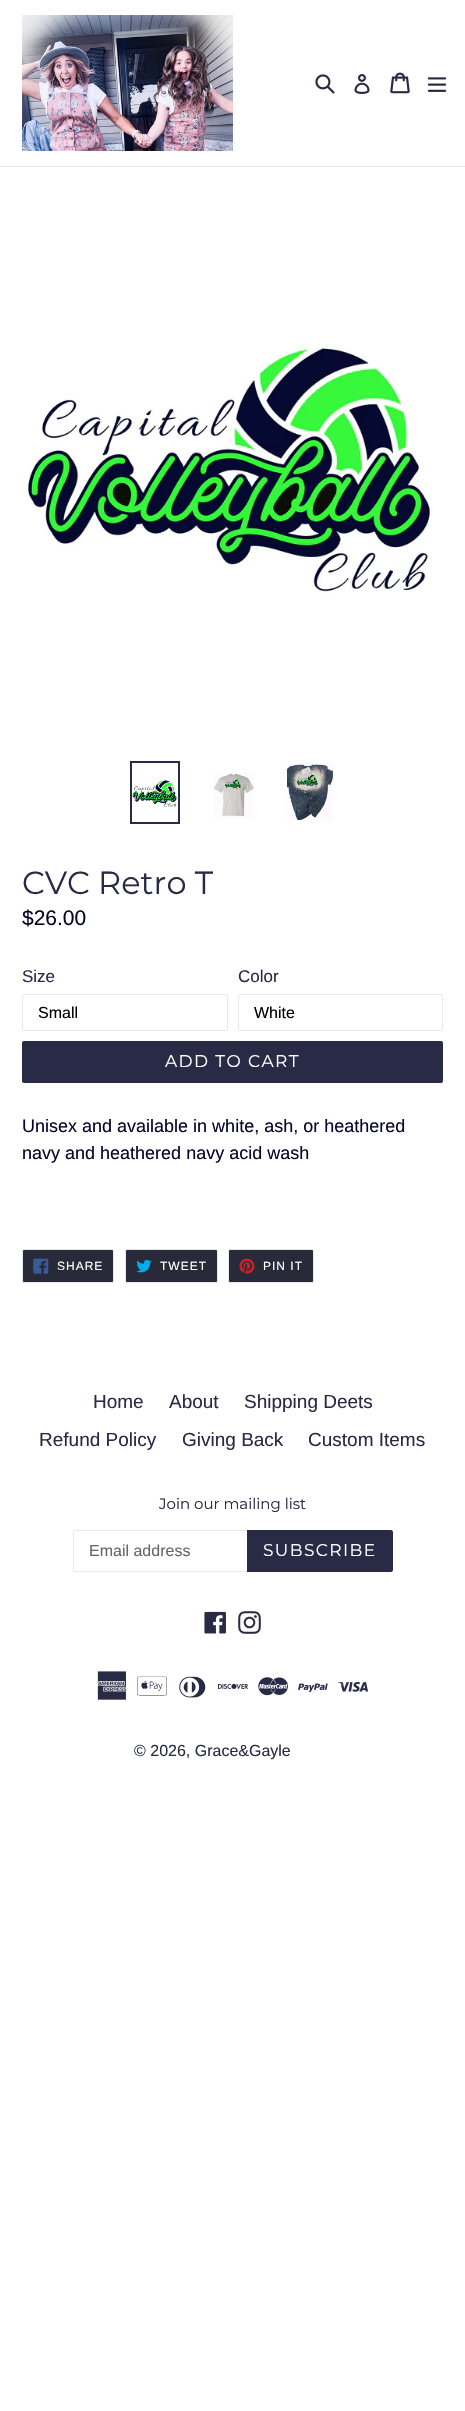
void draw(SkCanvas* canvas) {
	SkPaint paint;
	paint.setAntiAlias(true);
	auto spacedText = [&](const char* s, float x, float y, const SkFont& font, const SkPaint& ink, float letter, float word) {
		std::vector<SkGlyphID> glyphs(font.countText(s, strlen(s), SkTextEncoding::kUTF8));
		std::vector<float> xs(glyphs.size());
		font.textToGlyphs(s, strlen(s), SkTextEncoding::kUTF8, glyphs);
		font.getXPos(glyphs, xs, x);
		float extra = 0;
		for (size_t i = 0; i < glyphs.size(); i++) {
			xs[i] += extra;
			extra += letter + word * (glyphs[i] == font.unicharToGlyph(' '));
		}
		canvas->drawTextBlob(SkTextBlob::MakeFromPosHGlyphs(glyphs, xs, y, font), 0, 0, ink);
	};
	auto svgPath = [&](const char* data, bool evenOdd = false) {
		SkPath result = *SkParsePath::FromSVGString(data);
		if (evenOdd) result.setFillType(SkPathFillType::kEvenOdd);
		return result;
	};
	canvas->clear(0xffffffff);
	paint.setColor(0xffe8e9eb);
	canvas->drawRect(SkRect::MakeXYWH(0, 166, 465, 1), paint);
	canvas->drawImageRect(SkImages::DeferredFromEncodedData(SkData::MakeFromFileName("img1.png")), SkRect::MakeXYWH(22, 15, 211, 136), SkSamplingOptions());
	canvas->drawImageRect(SkImages::DeferredFromEncodedData(SkData::MakeFromFileName("img2.png")), SkRect::MakeXYWH(315, 74, 20, 20), SkSamplingOptions());
	canvas->drawImageRect(SkImages::DeferredFromEncodedData(SkData::MakeFromFileName("img3.png")), SkRect::MakeXYWH(354, 74, 16, 20), SkSamplingOptions());
	canvas->drawImageRect(SkImages::DeferredFromEncodedData(SkData::MakeFromFileName("img4.png")), SkRect::MakeXYWH(390, 72, 20, 22), SkSamplingOptions());
	canvas->drawImageRect(SkImages::DeferredFromEncodedData(SkData::MakeFromFileName("img5.png")), SkRect::MakeXYWH(427, 77, 20, 15), SkSamplingOptions());
	canvas->drawImageRect(SkImages::DeferredFromEncodedData(SkData::MakeFromFileName("img6.png")), SkRect::MakeXYWH(28, 345, 405, 249), SkSamplingOptions());
	paint.setStroke(true);
	paint.setStrokeWidth(2);
	paint.setColor(0xff292b46);
	canvas->drawRect(SkRect::MakeXYWH(131, 762, 48, 61), paint);
	canvas->drawImageRect(SkImages::DeferredFromEncodedData(SkData::MakeFromFileName("img7.png")), SkRect::MakeXYWH(132, 780, 45, 28), SkSamplingOptions());
	canvas->drawImageRect(SkImages::DeferredFromEncodedData(SkData::MakeFromFileName("img8.png")), SkRect::MakeXYWH(213, 773, 42, 45), SkSamplingOptions());
	canvas->drawImageRect(SkImages::DeferredFromEncodedData(SkData::MakeFromFileName("img9.png")), SkRect::MakeXYWH(287, 763, 46, 58), SkSamplingOptions());
	SkFont f1(fontMgr->matchFamilyStyle("Montserrat", SkFontStyle(100, SkFontStyle::kNormal_Width, SkFontStyle::kUpright_Slant)), 32);
	f1.setSubpixel(true);
	paint.setStroke(false);
	canvas->drawString("CVC Retro T", 22, 894, f1, paint);
	SkFont f2(fontMgr->matchFamilyStyle("Liberation Sans", SkFontStyle::Normal()), 21);
	f2.setSubpixel(true);
	paint.setColor(0xff06072b);
	canvas->drawString("$26.00", 22, 925, f2, paint);
	SkFont f3(fontMgr->matchFamilyStyle("Liberation Sans", SkFontStyle::Normal()), 17);
	f3.setSubpixel(true);
	paint.setColor(0xff292b46);
	canvas->drawString("Size", 22, 982, f3, paint);
	paint.setStroke(true);
	paint.setStrokeWidth(1);
	paint.setColor(0xffe8e9eb);
	canvas->drawRoundRect(SkRect::MakeXYWH(22.5, 994.5, 205, 36), 1.5, 1.5, paint);
	SkFont f4(fontMgr->matchFamilyStyle("Liberation Sans", SkFontStyle::Normal()), 16);
	f4.setSubpixel(true);
	paint.setStroke(false);
	paint.setColor(0xff000000);
	canvas->drawString("Small", 38, 1018, f4, paint);
	paint.setColor(0xff292b46);
	canvas->drawString("Color", 238, 982, f3, paint);
	paint.setStroke(true);
	paint.setColor(0xffe8e9eb);
	canvas->drawRoundRect(SkRect::MakeXYWH(238.5, 994.5, 204, 36), 1.5, 1.5, paint);
	paint.setStroke(false);
	paint.setColor(0xff000000);
	canvas->drawString("White", 254, 1018, f4, paint);
	paint.setColor(0xff292b46);
	canvas->drawRoundRect(SkRect::MakeXYWH(22, 1041, 421, 42), 2, 2, paint);
	SkFont f5(fontMgr->matchFamilyStyle("Montserrat", SkFontStyle(100, SkFontStyle::kNormal_Width, SkFontStyle::kUpright_Slant)), 17);
	f5.setSubpixel(true);
	paint.setColor(0xffffffff);
	spacedText("ADD TO CART", 165, 1067, f5, paint, 1.4, 0);
	SkFont f6(fontMgr->matchFamilyStyle("Liberation Sans", SkFontStyle::Normal()), 18);
	f6.setSubpixel(true);
	paint.setColor(0xff06072b);
	canvas->drawString("Unisex and available in white, ash, or heathered", 22, 1132, f6, paint);
	canvas->drawString("navy and heathered navy acid wash", 22, 1159, f6, paint);
	paint.setColor(0xff282939);
	canvas->drawRoundRect(SkRect::MakeXYWH(22.5, 1249.5, 91, 33), 1.5, 1.5, paint);
	paint.setStroke(true);
	paint.setColor(0xffe8e9eb);
	canvas->drawRoundRect(SkRect::MakeXYWH(22.5, 1249.5, 91, 33), 1.5, 1.5, paint);
	canvas->drawImageRect(SkImages::DeferredFromEncodedData(SkData::MakeFromFileName("img10.png")), SkRect::MakeXYWH(33, 1258, 16, 16), SkSamplingOptions());
	SkFont f7(fontMgr->matchFamilyStyle("Liberation Sans", SkFontStyle::Normal()), 12);
	f7.setSubpixel(true);
	paint.setStroke(false);
	paint.setColor(0xffffffff);
	spacedText("SHARE", 57, 1270, f7, paint, 1, 0);
	paint.setColor(0xff282939);
	canvas->drawRoundRect(SkRect::MakeXYWH(125.5, 1249.5, 92, 33), 1.5, 1.5, paint);
	paint.setStroke(true);
	paint.setColor(0xffe8e9eb);
	canvas->drawRoundRect(SkRect::MakeXYWH(125.5, 1249.5, 92, 33), 1.5, 1.5, paint);
	canvas->drawImageRect(SkImages::DeferredFromEncodedData(SkData::MakeFromFileName("img11.png")), SkRect::MakeXYWH(136, 1259, 16, 14), SkSamplingOptions());
	paint.setStroke(false);
	paint.setColor(0xffffffff);
	spacedText("TWEET", 160, 1270, f7, paint, 1, 0);
	paint.setColor(0xff282939);
	canvas->drawRoundRect(SkRect::MakeXYWH(228.5, 1249.5, 85, 33), 1.5, 1.5, paint);
	paint.setStroke(true);
	paint.setColor(0xffe8e9eb);
	canvas->drawRoundRect(SkRect::MakeXYWH(228.5, 1249.5, 85, 33), 1.5, 1.5, paint);
	canvas->drawImageRect(SkImages::DeferredFromEncodedData(SkData::MakeFromFileName("img12.png")), SkRect::MakeXYWH(239, 1258, 16, 16), SkSamplingOptions());
	paint.setStroke(false);
	paint.setColor(0xffffffff);
	spacedText("PIN IT", 263, 1270, f7, paint, 1, 0);
	SkFont f8(fontMgr->matchFamilyStyle("Liberation Sans", SkFontStyle::Normal()), 19);
	f8.setSubpixel(true);
	paint.setColor(0xff292b46);
	canvas->drawString("Home", 93, 1408, f8, paint);
	canvas->drawString("About", 169, 1408, f8, paint);
	canvas->drawString("Shipping Deets", 244, 1408, f8, paint);
	canvas->drawString("Refund Policy", 39, 1446, f8, paint);
	canvas->drawString("Giving Back", 182, 1446, f8, paint);
	canvas->drawString("Custom Items", 308, 1446, f8, paint);
	SkFont f9(fontMgr->matchFamilyStyle("Montserrat", SkFontStyle(100, SkFontStyle::kNormal_Width, SkFontStyle::kUpright_Slant)), 15);
	f9.setSubpixel(true);
	canvas->drawString("Join our mailing list", 159, 1509, f9, paint);
	paint.setColor(0xffe8e9eb);
	canvas->drawRect(SkRect::MakeXYWH(74, 1530, 173, 1), paint);
	canvas->drawRect(SkRect::MakeXYWH(74, 1571, 173, 1), paint);
	canvas->drawRect(SkRect::MakeXYWH(73, 1531, 1, 40), paint);
	paint.setColor(0xff666666);
	canvas->drawString("Email address", 89, 1556, f4, paint);
	paint.setColor(0xff292b46);
	canvas->drawPath(svgPath("M247 1530H391C392 1530 393 1531 393 1532V1570C393 1571 392 1572 391 1572H247Z"), paint);
	paint.setColor(0xffffffff);
	spacedText("SUBSCRIBE", 263, 1556, f5, paint, 1.4, 0);
	canvas->drawImageRect(SkImages::DeferredFromEncodedData(SkData::MakeFromFileName("img13.png")), SkRect::MakeXYWH(204, 1611, 22, 23), SkSamplingOptions());
	canvas->drawImageRect(SkImages::DeferredFromEncodedData(SkData::MakeFromFileName("img14.png")), SkRect::MakeXYWH(238, 1611, 23, 23), SkSamplingOptions());
	canvas->drawImageRect(SkImages::DeferredFromEncodedData(SkData::MakeFromFileName("img15.png")), SkRect::MakeXYWH(97, 1671, 30, 29), SkSamplingOptions());
	canvas->drawImageRect(SkImages::DeferredFromEncodedData(SkData::MakeFromFileName("img16.png")), SkRect::MakeXYWH(137, 1676, 30, 20), SkSamplingOptions());
	canvas->drawImageRect(SkImages::DeferredFromEncodedData(SkData::MakeFromFileName("img17.png")), SkRect::MakeXYWH(179, 1676, 27, 22), SkSamplingOptions());
	canvas->drawImageRect(SkImages::DeferredFromEncodedData(SkData::MakeFromFileName("img18.png")), SkRect::MakeXYWH(218, 1683, 30, 6), SkSamplingOptions());
	canvas->drawImageRect(SkImages::DeferredFromEncodedData(SkData::MakeFromFileName("img19.png")), SkRect::MakeXYWH(258, 1677, 30, 19), SkSamplingOptions());
	canvas->drawImageRect(SkImages::DeferredFromEncodedData(SkData::MakeFromFileName("img20.png")), SkRect::MakeXYWH(298, 1683, 30, 9), SkSamplingOptions());
	canvas->drawImageRect(SkImages::DeferredFromEncodedData(SkData::MakeFromFileName("img21.png")), SkRect::MakeXYWH(338, 1682, 30, 10), SkSamplingOptions());
	paint.setColor(0xff292b46);
	canvas->drawString("© 2026, Grace&Gayle", 134, 1756, f4, paint);
}
